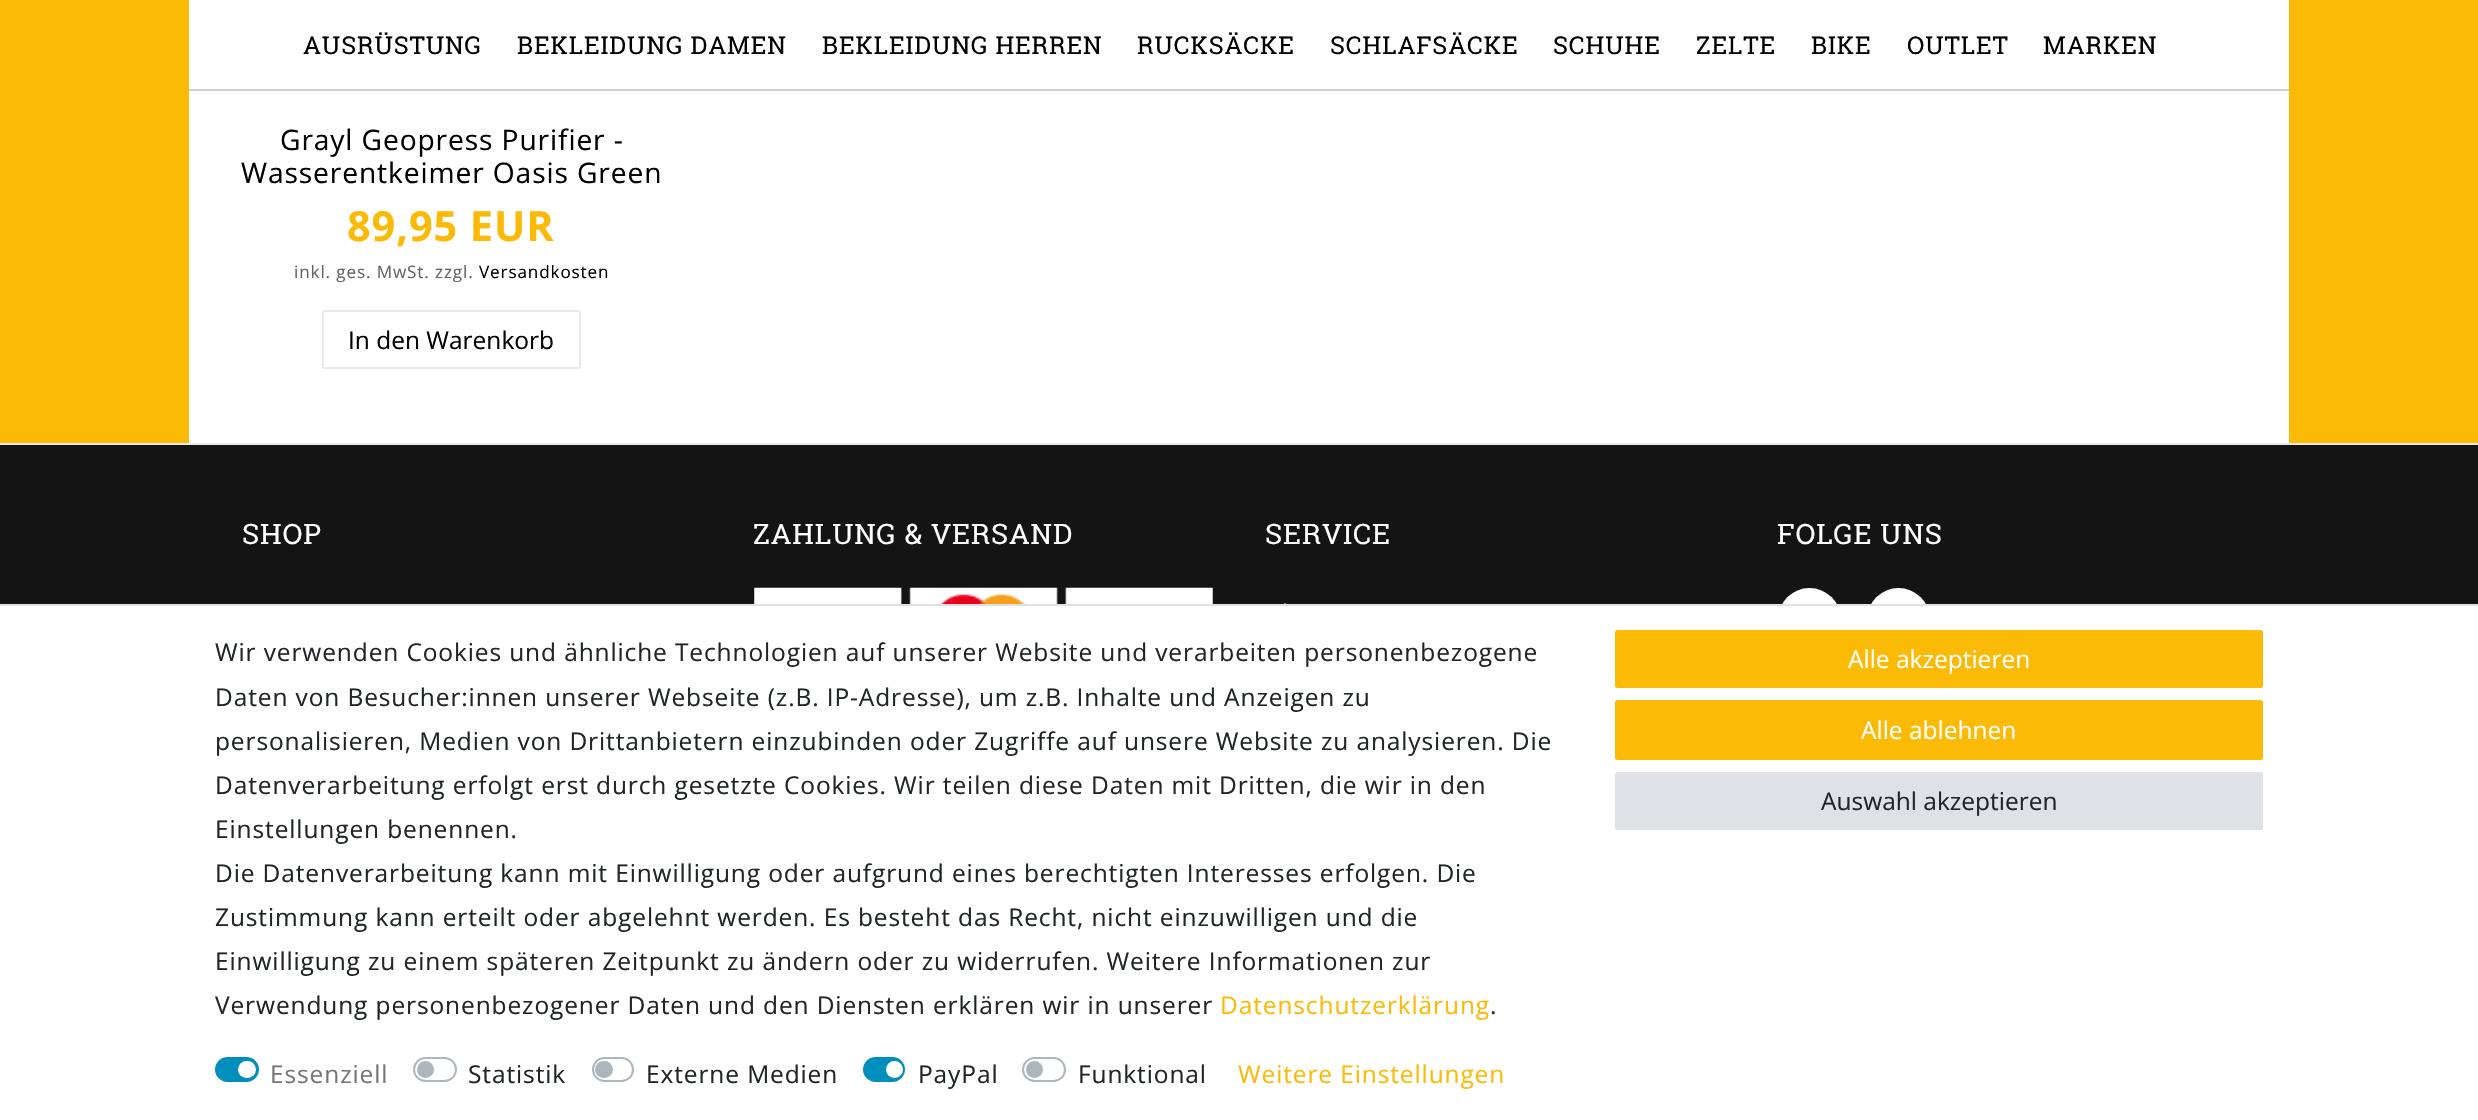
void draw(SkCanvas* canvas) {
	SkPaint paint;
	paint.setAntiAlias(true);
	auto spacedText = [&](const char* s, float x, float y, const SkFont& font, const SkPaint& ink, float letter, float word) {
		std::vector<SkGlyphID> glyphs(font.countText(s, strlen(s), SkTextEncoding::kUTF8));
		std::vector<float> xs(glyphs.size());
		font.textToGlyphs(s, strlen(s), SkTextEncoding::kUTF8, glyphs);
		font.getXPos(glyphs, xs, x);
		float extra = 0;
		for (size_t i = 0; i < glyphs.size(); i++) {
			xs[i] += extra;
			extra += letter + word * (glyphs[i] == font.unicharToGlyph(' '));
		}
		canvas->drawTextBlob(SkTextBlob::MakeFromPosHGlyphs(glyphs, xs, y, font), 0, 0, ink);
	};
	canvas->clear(0xfffbba05);
	paint.setColor(0xffffffff);
	canvas->drawRect(SkRect::MakeXYWH(189, 0, 2100, 89), paint);
	paint.setColor(0xffd0d0d0);
	canvas->drawRect(SkRect::MakeXYWH(189, 89, 2100, 2), paint);
	SkFont f1(fontMgr->matchFamilyStyle("Roboto Slab", SkFontStyle::Normal()), 24.5);
	f1.setSubpixel(true);
	paint.setColor(0xff000000);
	spacedText("AUSRÜSTUNG", 303, 54, f1, paint, 0.88, 0);
	spacedText("BEKLEIDUNG DAMEN", 517, 54, f1, paint, 0.88, 0);
	spacedText("BEKLEIDUNG HERREN", 822, 54, f1, paint, 0.88, 0);
	spacedText("RUCKSÄCKE", 1137, 54, f1, paint, 0.88, 0);
	spacedText("SCHLAFSÄCKE", 1330, 54, f1, paint, 0.88, 0);
	spacedText("SCHUHE", 1553, 54, f1, paint, 0.88, 0);
	spacedText("ZELTE", 1696, 54, f1, paint, 0.88, 0);
	spacedText("BIKE", 1811, 54, f1, paint, 0.88, 0);
	spacedText("OUTLET", 1907, 54, f1, paint, 0.88, 0);
	spacedText("MARKEN", 2043, 54, f1, paint, 0.88, 0);
	paint.setColor(0xffffffff);
	canvas->drawRect(SkRect::MakeXYWH(189, 91, 2100, 352), paint);
	SkFont f2(fontMgr->matchFamilyStyle("Open Sans", SkFontStyle::Normal()), 28.2);
	f2.setSubpixel(true);
	paint.setColor(0xff000000);
	spacedText("Grayl Geopress Purifier -", 280, 150, f2, paint, 0.88, 0);
	spacedText("Wasserentkeimer Oasis Green", 241, 183, f2, paint, 0.88, 0);
	SkFont f3(fontMgr->matchFamilyStyle("Open Sans", SkFontStyle::Bold()), 41.5);
	f3.setSubpixel(true);
	paint.setColor(0xfffbba05);
	spacedText("89,95 EUR", 347, 241, f3, paint, 0.88, 0);
	SkFont f4(fontMgr->matchFamilyStyle("Open Sans", SkFontStyle::Normal()), 17.1);
	f4.setSubpixel(true);
	paint.setColor(0xff636363);
	spacedText("inkl. ges. MwSt. zzgl.", 294, 278, f4, paint, 0.88, 0);
	paint.setColor(0xff000000);
	spacedText("Versandkosten", 479, 278, f4, paint, 0.88, 0);
	paint.setStroke(true);
	paint.setStrokeWidth(2);
	paint.setColor(0xffe9e9e9);
	canvas->drawRoundRect(SkRect::MakeXYWH(323, 311, 257, 57), 1.5, 1.5, paint);
	SkFont f5(fontMgr->matchFamilyStyle("Open Sans", SkFontStyle::Normal()), 24.5);
	f5.setSubpixel(true);
	paint.setStroke(false);
	paint.setColor(0xff000000);
	canvas->drawString("In den Warenkorb", 348, 349, f5, paint);
	paint.setColor(0xff141414);
	canvas->drawRect(SkRect::MakeXYWH(0, 445, 2478, 159), paint);
	paint.setColor(0xffe9e9e9);
	canvas->drawRect(SkRect::MakeXYWH(0, 443, 2478, 2), paint);
	SkFont f6(fontMgr->matchFamilyStyle("Roboto Slab", SkFontStyle::Normal()), 28.2);
	f6.setSubpixel(true);
	paint.setColor(0xffffffff);
	spacedText("SHOP", 242, 544, f6, paint, 0.88, 0);
	spacedText("ZAHLUNG & VERSAND", 753, 544, f6, paint, 0.88, 0);
	canvas->drawImageRect(SkImages::DeferredFromEncodedData(SkData::MakeFromFileName("img1.png")), SkRect::MakeXYWH(754, 587, 459, 17), SkSamplingOptions());
	spacedText("SERVICE", 1265, 544, f6, paint, 0.88, 0);
	canvas->drawImageRect(SkImages::DeferredFromEncodedData(SkData::MakeFromFileName("img2.png")), SkRect::MakeXYWH(1283, 603, 4, 1), SkSamplingOptions());
	spacedText("FOLGE UNS", 1777, 544, f6, paint, 0.88, 0);
	canvas->drawCircle(1809.5, 619.5, 31.5, paint);
	canvas->drawCircle(1898.5, 619.5, 31.5, paint);
	canvas->drawRect(SkRect::MakeXYWH(0, 606, 2478, 514), paint);
	paint.setColor(0xffdee2e6);
	canvas->drawRect(SkRect::MakeXYWH(0, 604, 2478, 2), paint);
	paint.setColor(0xff212529);
	spacedText("Wir verwenden Cookies und ähnliche Technologien auf unserer Website und verarbeiten personenbezogene", 215, 661, f5, paint, 0.88, 0);
	spacedText("Daten von Besucher:innen unserer Webseite (z.B. IP-Adresse), um z.B. Inhalte und Anzeigen zu", 215, 706, f5, paint, 0.88, 0);
	spacedText("personalisieren, Medien von Drittanbietern einzubinden oder Zugriffe auf unsere Website zu analysieren. Die", 215, 750, f5, paint, 0.88, 0);
	spacedText("Datenverarbeitung erfolgt erst durch gesetzte Cookies. Wir teilen diese Daten mit Dritten, die wir in den", 215, 794, f5, paint, 0.88, 0);
	spacedText("Einstellungen benennen.", 215, 838, f5, paint, 0.88, 0);
	spacedText("Die Datenverarbeitung kann mit Einwilligung oder aufgrund eines berechtigten Interesses erfolgen. Die", 215, 882, f5, paint, 0.88, 0);
	spacedText("Zustimmung kann erteilt oder abgelehnt werden. Es besteht das Recht, nicht einzuwilligen und die", 215, 926, f5, paint, 0.88, 0);
	spacedText("Einwilligung zu einem späteren Zeitpunkt zu ändern oder zu widerrufen. Weitere Informationen zur", 215, 970, f5, paint, 0.88, 0);
	spacedText("Verwendung personenbezogener Daten und den Diensten erklären wir in unserer", 215, 1014, f5, paint, 0.88, 0);
	paint.setColor(0xfffbba05);
	spacedText("Datenschutzerklärung", 1220, 1014, f5, paint, 0.88, 0);
	paint.setColor(0xff212529);
	spacedText(".", 1490, 1014, f5, paint, 0.88, 0);
	paint.setColor(0xff008ebd);
	canvas->drawRoundRect(SkRect::MakeXYWH(216, 1058, 42, 23), 11.5, 11.5, paint);
	paint.setStroke(true);
	canvas->drawRoundRect(SkRect::MakeXYWH(216, 1058, 42, 23), 11.5, 11.5, paint);
	paint.setStroke(false);
	paint.setColor(0xffffffff);
	canvas->drawRoundRect(SkRect::MakeXYWH(238, 1061, 18, 17), 8.5, 8.5, paint);
	paint.setColor(0xff767676);
	spacedText("Essenziell", 270, 1083, f5, paint, 0.88, 0);
	paint.setStroke(true);
	paint.setColor(0xffadb5bd);
	canvas->drawRoundRect(SkRect::MakeXYWH(414, 1058, 42, 23), 11.5, 11.5, paint);
	paint.setStroke(false);
	canvas->drawCircle(425.5, 1069.5, 8.5, paint);
	paint.setColor(0xff212529);
	spacedText("Statistik", 468, 1083, f5, paint, 0.88, 0);
	paint.setStroke(true);
	paint.setColor(0xffadb5bd);
	canvas->drawRoundRect(SkRect::MakeXYWH(593, 1058, 40, 23), 11.5, 11.5, paint);
	paint.setStroke(false);
	canvas->drawRoundRect(SkRect::MakeXYWH(595, 1061, 18, 17), 8.5, 8.5, paint);
	paint.setColor(0xff212529);
	spacedText("Externe Medien", 646, 1083, f5, paint, 0.88, 0);
	paint.setColor(0xff008ebd);
	canvas->drawRoundRect(SkRect::MakeXYWH(864, 1058, 40, 23), 11.5, 11.5, paint);
	paint.setStroke(true);
	canvas->drawRoundRect(SkRect::MakeXYWH(864, 1058, 40, 23), 11.5, 11.5, paint);
	paint.setStroke(false);
	paint.setColor(0xffffffff);
	canvas->drawCircle(894.5, 1069.5, 8.5, paint);
	paint.setColor(0xff212529);
	spacedText("PayPal", 918, 1083, f5, paint, 0.88, 0);
	paint.setStroke(true);
	paint.setColor(0xffadb5bd);
	canvas->drawRoundRect(SkRect::MakeXYWH(1023, 1058, 42, 23), 11.5, 11.5, paint);
	paint.setStroke(false);
	canvas->drawCircle(1034.5, 1069.5, 8.5, paint);
	paint.setColor(0xff212529);
	spacedText("Funktional", 1078, 1083, f5, paint, 0.88, 0);
	paint.setColor(0xfffbba05);
	spacedText("Weitere Einstellungen", 1238, 1083, f5, paint, 0.88, 0);
	canvas->drawRoundRect(SkRect::MakeXYWH(1616, 631, 646, 56), 1.5, 1.5, paint);
	paint.setStroke(true);
	canvas->drawRoundRect(SkRect::MakeXYWH(1616, 631, 646, 56), 1.5, 1.5, paint);
	paint.setStroke(false);
	paint.setColor(0xffffffff);
	canvas->drawString("Alle akzeptieren", 1848, 668, f5, paint);
	paint.setColor(0xfffbba05);
	canvas->drawRoundRect(SkRect::MakeXYWH(1616, 701, 646, 58), 1.5, 1.5, paint);
	paint.setStroke(true);
	canvas->drawRoundRect(SkRect::MakeXYWH(1616, 701, 646, 58), 1.5, 1.5, paint);
	paint.setStroke(false);
	paint.setColor(0xffffffff);
	canvas->drawString("Alle ablehnen", 1861, 739, f5, paint);
	paint.setColor(0xffdee2e6);
	canvas->drawRoundRect(SkRect::MakeXYWH(1616, 773, 646, 56), 1.5, 1.5, paint);
	paint.setStroke(true);
	canvas->drawRoundRect(SkRect::MakeXYWH(1616, 773, 646, 56), 1.5, 1.5, paint);
	paint.setStroke(false);
	paint.setColor(0xff212529);
	canvas->drawString("Auswahl akzeptieren", 1821, 810, f5, paint);
}
